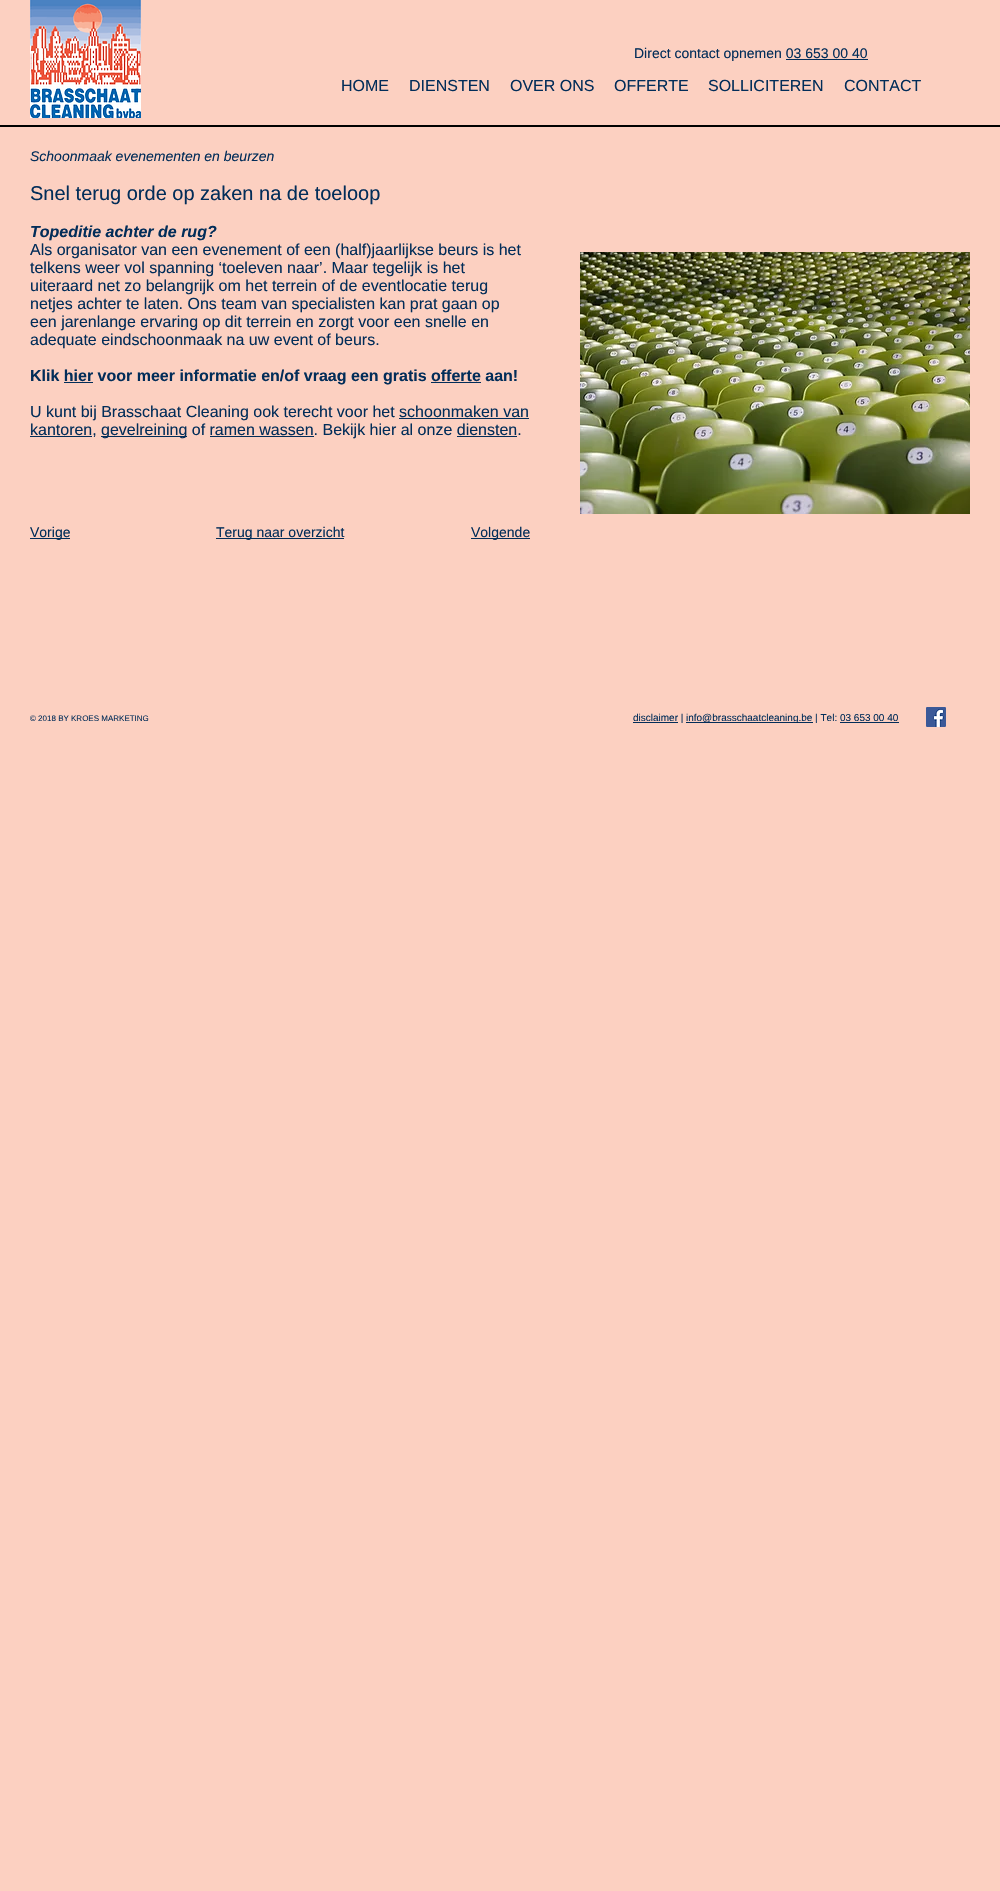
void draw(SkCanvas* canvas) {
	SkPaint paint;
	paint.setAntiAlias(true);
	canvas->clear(0xfffcd0c1);
	canvas->drawImageRect(SkImages::DeferredFromEncodedData(SkData::MakeFromFileName("img1.png")), SkRect::MakeXYWH(30, 0, 111, 118), SkSamplingOptions());
	SkFont f1(fontMgr->matchFamilyStyle("Liberation Sans", SkFontStyle::Normal()), 14);
	f1.setSubpixel(true);
	paint.setColor(0xff022d59);
	canvas->drawString("Direct contact opnemen 03 653 00 40", 634, 58, f1, paint);
	canvas->drawRect(SkRect::MakeXYWH(786, 59, 82, 1), paint);
	SkFont f2(fontMgr->matchFamilyStyle("Liberation Sans", SkFontStyle::Normal()), 16);
	f2.setSubpixel(true);
	canvas->drawString("HOME", 341, 91, f2, paint);
	canvas->drawString("DIENSTEN", 409, 91, f2, paint);
	canvas->drawString("OVER ONS", 510, 91, f2, paint);
	canvas->drawString("OFFERTE", 614, 91, f2, paint);
	canvas->drawString("SOLLICITEREN", 708, 91, f2, paint);
	canvas->drawString("CONTACT", 844, 91, f2, paint);
	paint.setColor(0xff000000);
	canvas->drawRect(SkRect::MakeXYWH(0, 125, 1000, 2), paint);
	SkFont f3(fontMgr->matchFamilyStyle("Liberation Sans", SkFontStyle::Italic()), 14);
	f3.setSubpixel(true);
	paint.setColor(0xff022d59);
	canvas->drawString("Schoonmaak evenementen en beurzen", 30, 161, f3, paint);
	SkFont f4(fontMgr->matchFamilyStyle("Liberation Sans", SkFontStyle::Normal()), 20);
	f4.setSubpixel(true);
	canvas->drawString("Snel terug orde op zaken na de toeloop", 30, 200, f4, paint);
	SkFont f5(fontMgr->matchFamilyStyle("Liberation Sans", SkFontStyle::BoldItalic()), 16);
	f5.setSubpixel(true);
	canvas->drawString("Topeditie achter de rug?", 30, 237, f5, paint);
	canvas->drawString("Als organisator van een evenement of een (half)jaarlijkse beurs is het", 30, 255, f2, paint);
	canvas->drawString("telkens weer vol spanning ‘toeleven naar’. Maar tegelijk is het", 30, 273, f2, paint);
	canvas->drawString("uiteraard net zo belangrijk om het terrein of de eventlocatie terug", 30, 291, f2, paint);
	canvas->drawString("netjes achter te laten. Ons team van specialisten kan prat gaan op", 30, 309, f2, paint);
	canvas->drawString("een jarenlange ervaring op dit terrein en zorgt voor een snelle en", 30, 327, f2, paint);
	canvas->drawString("adequate eindschoonmaak na uw event of beurs.", 30, 345, f2, paint);
	SkFont f6(fontMgr->matchFamilyStyle("Liberation Sans", SkFontStyle::Bold()), 16);
	f6.setSubpixel(true);
	canvas->drawString("Klik hier voor meer informatie en/of vraag een gratis offerte aan!", 30, 381, f6, paint);
	canvas->drawRect(SkRect::MakeXYWH(64, 382, 29, 1), paint);
	canvas->drawRect(SkRect::MakeXYWH(431, 382, 50, 1), paint);
	canvas->drawString("U kunt bij Brasschaat Cleaning ook terecht voor het schoonmaken van", 30, 417, f2, paint);
	canvas->drawRect(SkRect::MakeXYWH(399, 418, 130, 1), paint);
	canvas->drawRect(SkRect::MakeXYWH(30, 436, 62, 1), paint);
	canvas->drawString("kantoren,", 30, 435, f2, paint);
	canvas->drawRect(SkRect::MakeXYWH(101, 436, 86, 1), paint);
	canvas->drawString("gevelreining of ramen wassen. Bekijk hier al onze diensten.", 101, 435, f2, paint);
	canvas->drawRect(SkRect::MakeXYWH(210, 436, 104, 1), paint);
	canvas->drawRect(SkRect::MakeXYWH(457, 436, 60, 1), paint);
	canvas->drawImageRect(SkImages::DeferredFromEncodedData(SkData::MakeFromFileName("img2.png")), SkRect::MakeXYWH(580, 252, 390, 262), SkSamplingOptions());
	canvas->drawRect(SkRect::MakeXYWH(30, 538, 40, 1), paint);
	canvas->drawString("Vorige", 30, 537, f1, paint);
	canvas->drawRect(SkRect::MakeXYWH(216, 538, 128, 1), paint);
	canvas->drawString("Terug naar overzicht", 216, 537, f1, paint);
	canvas->drawRect(SkRect::MakeXYWH(471, 538, 59, 1), paint);
	canvas->drawString("Volgende", 471, 537, f1, paint);
	SkFont f7(fontMgr->matchFamilyStyle("Liberation Sans", SkFontStyle::Normal()), 8);
	f7.setSubpixel(true);
	canvas->drawString("© 2018 BY KROES MARKETING", 30, 721, f7, paint);
	canvas->drawRect(SkRect::MakeXYWH(633, 722, 45, 1), paint);
	SkFont f8(fontMgr->matchFamilyStyle("Liberation Sans", SkFontStyle::Normal()), 10);
	f8.setSubpixel(true);
	canvas->drawString("disclaimer |", 633, 721, f8, paint);
	canvas->drawRect(SkRect::MakeXYWH(686, 722, 127, 1), paint);
	canvas->drawString("info@brasschaatcleaning.be | Tel: 03 653 00 40", 686, 721, f8, paint);
	canvas->drawRect(SkRect::MakeXYWH(840, 722, 59, 1), paint);
	canvas->drawImageRect(SkImages::DeferredFromEncodedData(SkData::MakeFromFileName("img3.png")), SkRect::MakeXYWH(926, 707, 20, 20), SkSamplingOptions());
}
